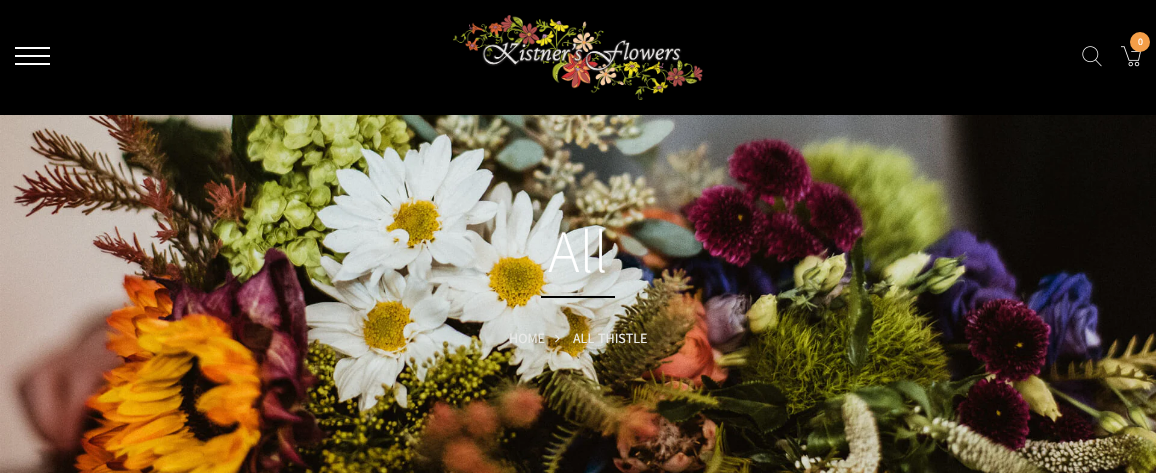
void draw(SkCanvas* canvas) {
	SkPaint paint;
	paint.setAntiAlias(true);
	canvas->clear(0xff000000);
	canvas->drawImageRect(SkImages::DeferredFromEncodedData(SkData::MakeFromFileName("img1.png")), SkRect::MakeXYWH(453, 15, 250, 85), SkSamplingOptions());
	canvas->drawImageRect(SkImages::DeferredFromEncodedData(SkData::MakeFromFileName("img2.png")), SkRect::MakeXYWH(1121, 46, 20, 21), SkSamplingOptions());
	paint.setColor(0xfff49e48);
	canvas->drawCircle(1140, 42, 10, paint);
	SkFont f1(fontMgr->matchFamilyStyle("Source Sans Pro", SkFontStyle::Normal()), 10);
	f1.setSubpixel(true);
	paint.setColor(0xffffffff);
	canvas->drawString("0", 1138, 45, f1, paint);
	canvas->drawImageRect(SkImages::DeferredFromEncodedData(SkData::MakeFromFileName("img3.png")), SkRect::MakeXYWH(1082, 46, 20, 21), SkSamplingOptions());
	canvas->drawRect(SkRect::MakeXYWH(15, 47, 35, 2), paint);
	canvas->drawRect(SkRect::MakeXYWH(15, 55, 35, 2), paint);
	canvas->drawRect(SkRect::MakeXYWH(15, 63, 35, 2), paint);
	canvas->drawImageRect(SkImages::DeferredFromEncodedData(SkData::MakeFromFileName("img4.png")), SkRect::MakeXYWH(0, 115, 1156, 358), SkSamplingOptions());
	SkFont f2(fontMgr->matchFamilyStyle("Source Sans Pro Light", SkFontStyle(300, SkFontStyle::kNormal_Width, SkFontStyle::kUpright_Slant)), 60);
	f2.setSubpixel(true);
	canvas->drawString("All", 548, 272, f2, paint);
	paint.setColor(0xff010101);
	canvas->drawRect(SkRect::MakeXYWH(541, 296, 74, 2), paint);
	SkFont f3(fontMgr->matchFamilyStyle("Source Sans Pro", SkFontStyle::Normal()), 14);
	f3.setSubpixel(true);
	paint.setColor(0xffebebe9);
	canvas->drawString("HOME", 509, 343, f3, paint);
	canvas->drawImageRect(SkImages::DeferredFromEncodedData(SkData::MakeFromFileName("img5.png")), SkRect::MakeXYWH(555, 334, 5, 9), SkSamplingOptions());
	canvas->drawString("ALL", 573, 343, f3, paint);
	canvas->drawString("THISTLE", 598, 343, f3, paint);
}
